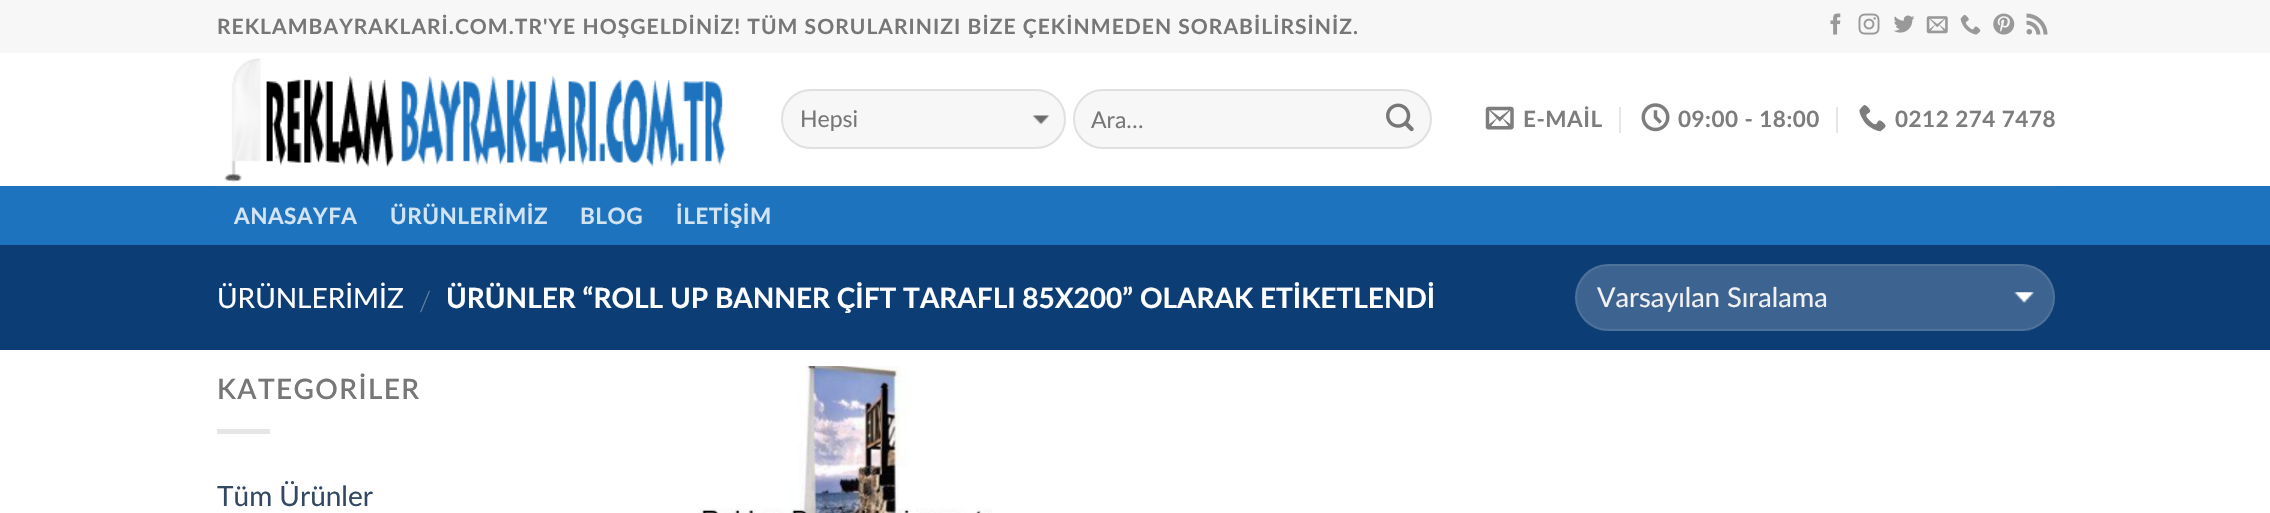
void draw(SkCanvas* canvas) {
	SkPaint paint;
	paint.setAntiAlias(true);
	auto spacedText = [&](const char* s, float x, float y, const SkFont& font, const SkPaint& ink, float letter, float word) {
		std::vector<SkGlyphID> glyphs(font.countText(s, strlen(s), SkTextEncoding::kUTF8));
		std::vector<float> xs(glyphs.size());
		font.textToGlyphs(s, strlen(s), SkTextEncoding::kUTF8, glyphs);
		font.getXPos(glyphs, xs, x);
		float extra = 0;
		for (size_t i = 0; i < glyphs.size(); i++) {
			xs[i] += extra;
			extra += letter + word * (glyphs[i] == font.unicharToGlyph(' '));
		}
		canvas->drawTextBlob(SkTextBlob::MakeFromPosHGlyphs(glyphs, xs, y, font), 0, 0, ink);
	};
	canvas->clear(0xffffffff);
	paint.setColor(0xfff7f7f7);
	canvas->drawRect(SkRect::MakeXYWH(0, 0, 2270, 53), paint);
	SkFont f1(fontMgr->matchFamilyStyle("Lato", SkFontStyle::Bold()), 21);
	f1.setSubpixel(true);
	paint.setColor(0xff777777);
	spacedText("REKLAMBAYRAKLARİ.COM.TR'YE HOŞGELDİNİZ! TÜM SORULARINIZI BİZE ÇEKİNMEDEN SORABİLİRSİNİZ.", 217, 34, f1, paint, 1.05, 0);
	canvas->drawImageRect(SkImages::DeferredFromEncodedData(SkData::MakeFromFileName("img1.png")), SkRect::MakeXYWH(1830, 13, 11, 22), SkSamplingOptions());
	canvas->drawImageRect(SkImages::DeferredFromEncodedData(SkData::MakeFromFileName("img2.png")), SkRect::MakeXYWH(1858, 13, 22, 22), SkSamplingOptions());
	canvas->drawImageRect(SkImages::DeferredFromEncodedData(SkData::MakeFromFileName("img3.png")), SkRect::MakeXYWH(1893, 15, 22, 18), SkSamplingOptions());
	canvas->drawImageRect(SkImages::DeferredFromEncodedData(SkData::MakeFromFileName("img4.png")), SkRect::MakeXYWH(1926, 16, 22, 18), SkSamplingOptions());
	canvas->drawImageRect(SkImages::DeferredFromEncodedData(SkData::MakeFromFileName("img5.png")), SkRect::MakeXYWH(1960, 14, 21, 21), SkSamplingOptions());
	canvas->drawImageRect(SkImages::DeferredFromEncodedData(SkData::MakeFromFileName("img6.png")), SkRect::MakeXYWH(1993, 13, 22, 22), SkSamplingOptions());
	canvas->drawImageRect(SkImages::DeferredFromEncodedData(SkData::MakeFromFileName("img7.png")), SkRect::MakeXYWH(2026, 13, 22, 22), SkSamplingOptions());
	canvas->drawImageRect(SkImages::DeferredFromEncodedData(SkData::MakeFromFileName("img8.png")), SkRect::MakeXYWH(224, 58, 502, 124), SkSamplingOptions());
	paint.setColor(0xfff7f7f7);
	canvas->drawRoundRect(SkRect::MakeXYWH(781, 89, 285, 60), 30, 30, paint);
	canvas->drawImageRect(SkImages::DeferredFromEncodedData(SkData::MakeFromFileName("img9.png")), SkRect::MakeXYWH(1032, 115, 18, 10), SkSamplingOptions());
	paint.setStroke(true);
	paint.setStrokeWidth(2);
	paint.setColor(0x17000000);
	canvas->drawRoundRect(SkRect::MakeXYWH(782, 90, 283, 58), 29, 29, paint);
	SkFont f2(fontMgr->matchFamilyStyle("Lato", SkFontStyle::Normal()), 23);
	f2.setSubpixel(true);
	paint.setStroke(false);
	paint.setColor(0xff777777);
	canvas->drawString("Hepsi", 800, 127, f2, paint);
	paint.setColor(0xfff7f7f7);
	canvas->drawRoundRect(SkRect::MakeXYWH(1073, 89, 359, 60), 30, 30, paint);
	paint.setStroke(true);
	paint.setColor(0x17000000);
	canvas->drawRoundRect(SkRect::MakeXYWH(1074, 90, 357, 58), 29, 29, paint);
	paint.setStroke(false);
	paint.setColor(0xff777777);
	canvas->drawString("Ara…", 1091, 128, f2, paint);
	canvas->drawImageRect(SkImages::DeferredFromEncodedData(SkData::MakeFromFileName("img10.png")), SkRect::MakeXYWH(1386, 103, 28, 29), SkSamplingOptions());
	canvas->drawImageRect(SkImages::DeferredFromEncodedData(SkData::MakeFromFileName("img11.png")), SkRect::MakeXYWH(1485, 106, 29, 24), SkSamplingOptions());
	SkFont f3(fontMgr->matchFamilyStyle("Lato", SkFontStyle::Bold()), 22.5);
	f3.setSubpixel(true);
	paint.setColor(0xff7d7d7d);
	spacedText("E-MAİL", 1523, 127, f3, paint, 0.5, 0);
	paint.setColor(0xffe6e6e6);
	canvas->drawRect(SkRect::MakeXYWH(1619, 107, 2, 26), paint);
	canvas->drawImageRect(SkImages::DeferredFromEncodedData(SkData::MakeFromFileName("img12.png")), SkRect::MakeXYWH(1641, 103, 29, 29), SkSamplingOptions());
	paint.setColor(0xff7d7d7d);
	spacedText("09:00 - 18:00", 1678, 127, f3, paint, 0.5, 0);
	paint.setColor(0xffe6e6e6);
	canvas->drawRect(SkRect::MakeXYWH(1836, 107, 2, 26), paint);
	canvas->drawImageRect(SkImages::DeferredFromEncodedData(SkData::MakeFromFileName("img13.png")), SkRect::MakeXYWH(1859, 105, 27, 27), SkSamplingOptions());
	paint.setColor(0xff7d7d7d);
	spacedText("0212 274 7478", 1895, 127, f3, paint, 0.5, 0);
	paint.setColor(0xff1e73be);
	canvas->drawRect(SkRect::MakeXYWH(0, 186, 2270, 59), paint);
	paint.setColor(0xff2773b7);
	canvas->drawRect(SkRect::MakeXYWH(217, 186, 1838, 2), paint);
	paint.setColor(0xffd2e3f2);
	spacedText("ANASAYFA", 234, 224, f3, paint, 0.5, 0);
	spacedText("ÜRÜNLERİMİZ", 390, 224, f3, paint, 0.5, 0);
	spacedText("BLOG", 580, 224, f3, paint, 0.5, 0);
	spacedText("İLETİŞİM", 676, 224, f3, paint, 0.5, 0);
	paint.setColor(0xff0d3d75);
	canvas->drawRect(SkRect::MakeXYWH(0, 245, 2270, 105), paint);
	SkFont f4(fontMgr->matchFamilyStyle("Lato", SkFontStyle::Normal()), 28);
	f4.setSubpixel(true);
	paint.setColor(0xffffffff);
	canvas->drawString("ÜRÜNLERİMİZ", 217, 308, f4, paint);
	SkFont f5(fontMgr->matchFamilyStyle("Lato", SkFontStyle(300, SkFontStyle::kNormal_Width, SkFontStyle::kUpright_Slant)), 28);
	f5.setSubpixel(true);
	paint.setColor(0xff6281a5);
	canvas->drawString("/", 419, 311, f5, paint);
	SkFont f6(fontMgr->matchFamilyStyle("Lato", SkFontStyle::Bold()), 28);
	f6.setSubpixel(true);
	paint.setColor(0xffffffff);
	canvas->drawString("ÜRÜNLER “ROLL UP BANNER ÇİFT TARAFLI 85X200” OLARAK ETİKETLENDİ", 446, 308, f6, paint);
	paint.setColor(0xff3d6491);
	canvas->drawRoundRect(SkRect::MakeXYWH(1575, 264, 480, 67), 33.5, 33.5, paint);
	canvas->drawImageRect(SkImages::DeferredFromEncodedData(SkData::MakeFromFileName("img14.png")), SkRect::MakeXYWH(2014, 292, 20, 11), SkSamplingOptions());
	paint.setStroke(true);
	paint.setColor(0x17ffffff);
	canvas->drawRoundRect(SkRect::MakeXYWH(1576, 265, 478, 65), 32.5, 32.5, paint);
	SkFont f7(fontMgr->matchFamilyStyle("Lato", SkFontStyle::Normal()), 27.25);
	f7.setSubpixel(true);
	paint.setStroke(false);
	paint.setColor(0xfff1f1f1);
	canvas->drawString("Varsayılan Sıralama", 1597, 307, f7, paint);
	SkFont f8(fontMgr->matchFamilyStyle("Lato", SkFontStyle(600, SkFontStyle::kNormal_Width, SkFontStyle::kUpright_Slant)), 28);
	f8.setSubpixel(true);
	paint.setColor(0xff777777);
	spacedText("KATEGORİLER", 217, 399, f8, paint, 1.4, 0);
	paint.setColor(0xffe6e6e6);
	canvas->drawRect(SkRect::MakeXYWH(217, 429, 53, 5), paint);
	paint.setColor(0xff334862);
	canvas->drawString("Tüm Ürünler", 217, 506, f4, paint);
	canvas->drawImageRect(SkImages::DeferredFromEncodedData(SkData::MakeFromFileName("img15.png")), SkRect::MakeXYWH(698, 366, 294, 147), SkSamplingOptions());
}
